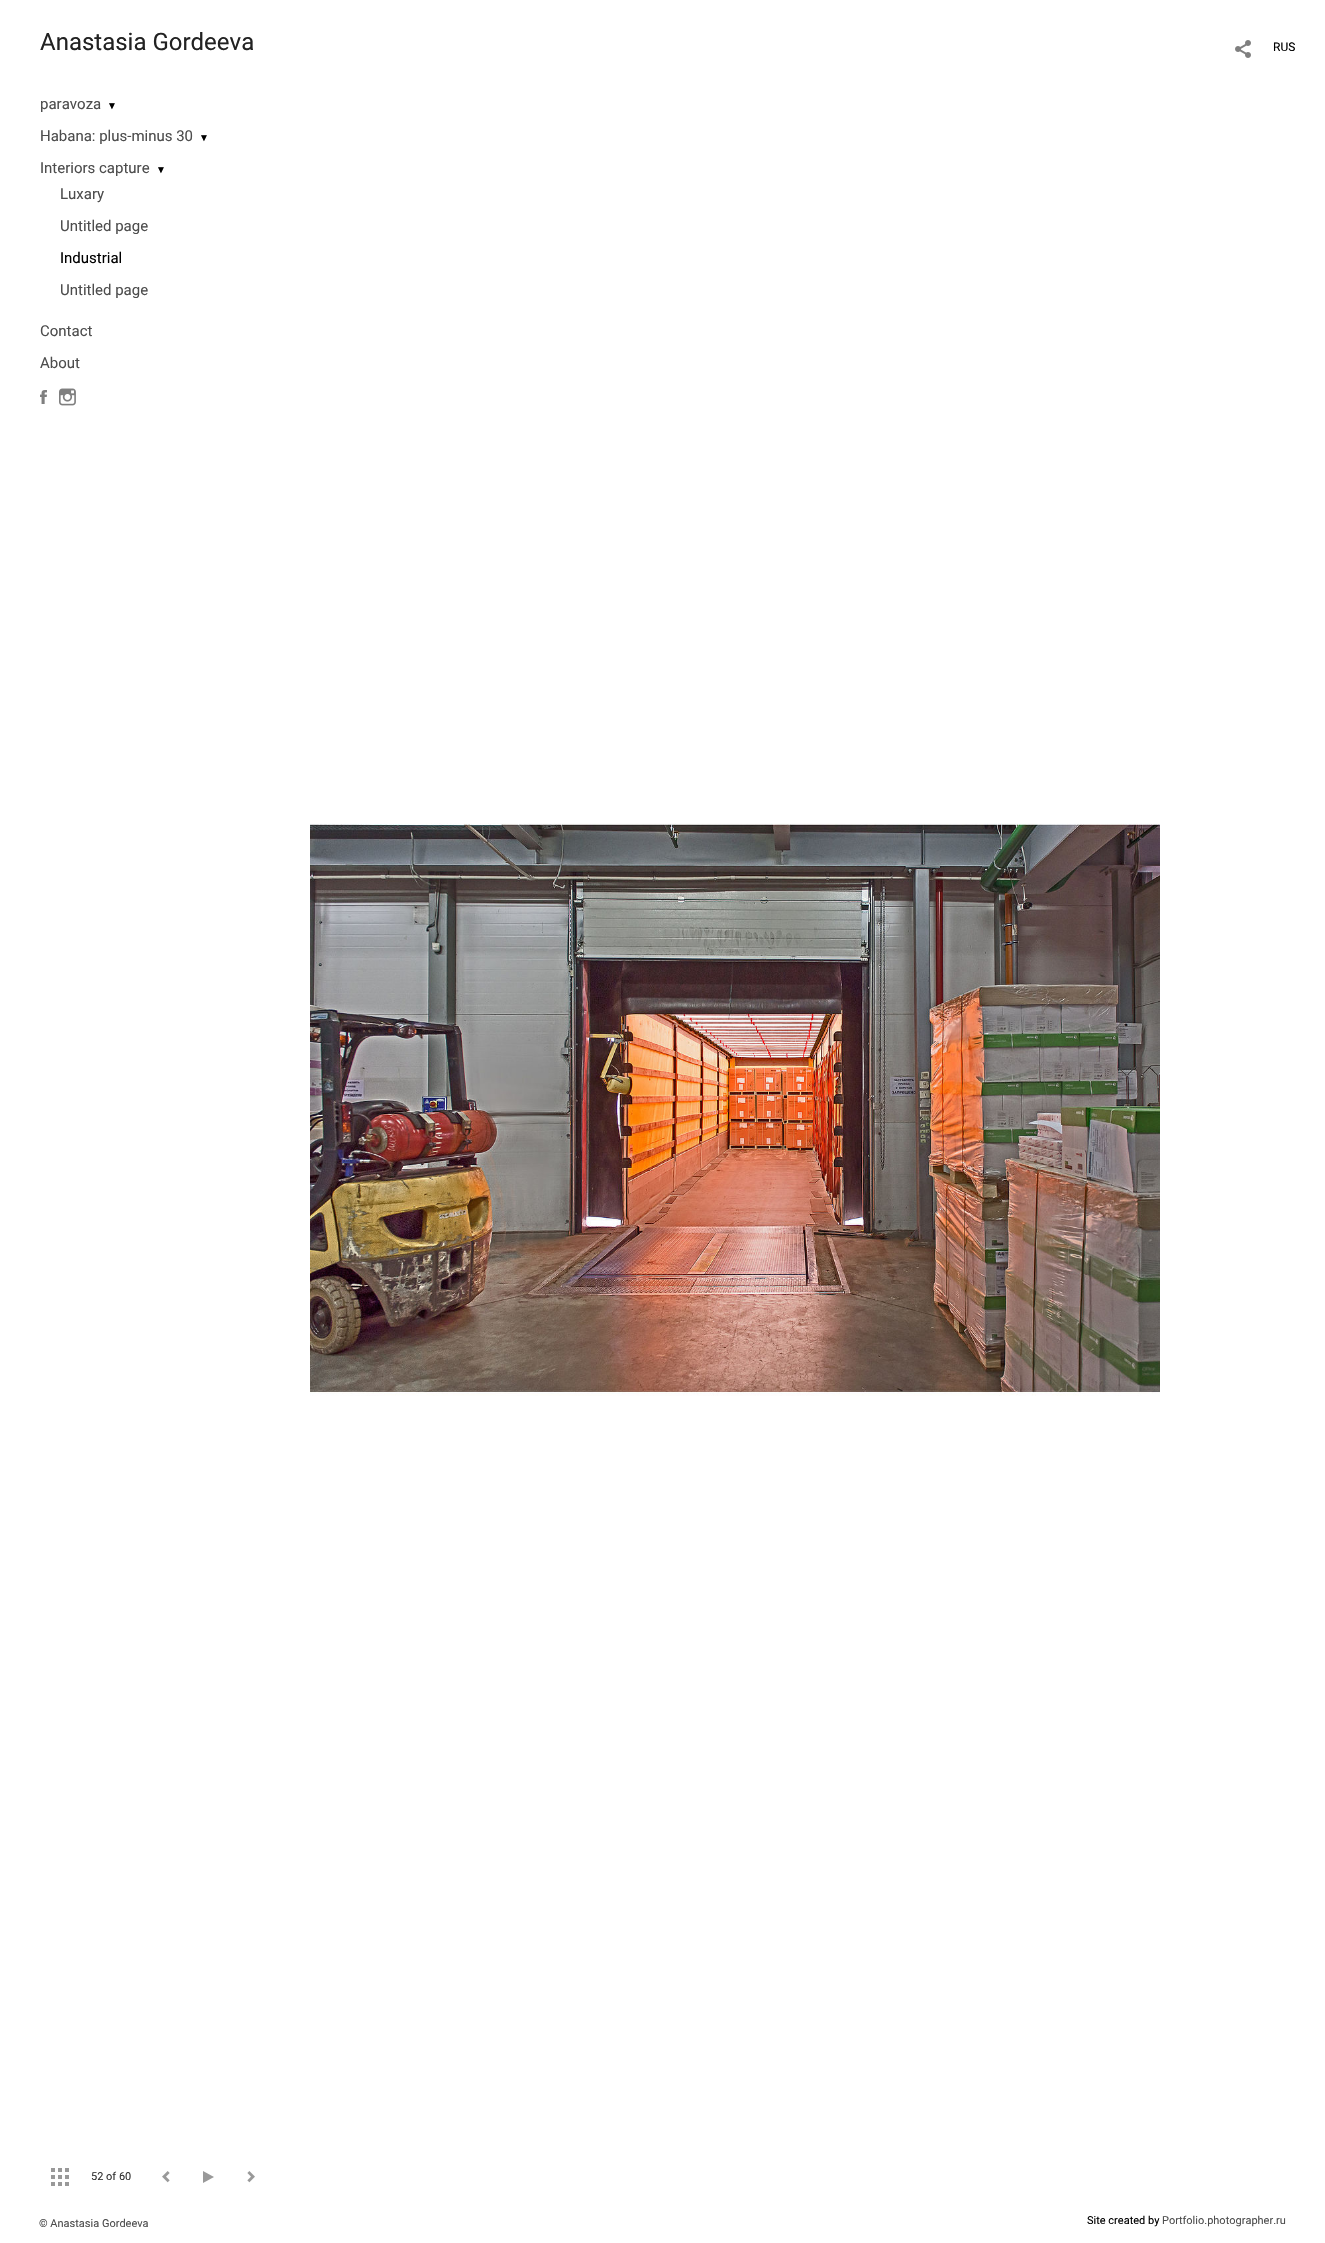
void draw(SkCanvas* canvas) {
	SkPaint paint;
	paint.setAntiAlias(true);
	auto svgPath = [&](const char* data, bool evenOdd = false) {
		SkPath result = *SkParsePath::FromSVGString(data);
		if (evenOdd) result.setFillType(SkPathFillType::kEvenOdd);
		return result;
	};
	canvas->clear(0xffffffff);
	SkFont f1(fontMgr->matchFamilyStyle("Roboto", SkFontStyle::Normal()), 24);
	f1.setSubpixel(true);
	paint.setColor(0xff222222);
	canvas->drawString("Anastasia Gordeeva", 40, 50, f1, paint);
	SkFont f2(fontMgr->matchFamilyStyle("Roboto", SkFontStyle::Normal()), 15);
	f2.setSubpixel(true);
	paint.setColor(0xff4d4d4d);
	canvas->drawString("paravoza", 40, 109, f2, paint);
	SkFont f3(fontMgr->matchFamilyStyle("Liberation Serif", SkFontStyle::Normal()), 10);
	f3.setSubpixel(true);
	paint.setColor(0xff000000);
	canvas->drawString("▼", 107, 109, f3, paint);
	paint.setColor(0xff4d4d4d);
	canvas->drawString("Habana: plus-minus 30", 40, 141, f2, paint);
	paint.setColor(0xff000000);
	canvas->drawString("▼", 199, 141, f3, paint);
	paint.setColor(0xff4d4d4d);
	canvas->drawString("Interiors capture", 40, 173, f2, paint);
	paint.setColor(0xff000000);
	canvas->drawString("▼", 156, 173, f3, paint);
	paint.setColor(0xff4d4d4d);
	canvas->drawString("Luxary", 60, 199, f2, paint);
	canvas->drawString("Untitled page", 60, 231, f2, paint);
	paint.setColor(0xff000000);
	canvas->drawString("Industrial", 60, 263, f2, paint);
	paint.setColor(0xff4d4d4d);
	canvas->drawString("Untitled page", 60, 295, f2, paint);
	canvas->drawString("Contact", 40, 336, f2, paint);
	canvas->drawString("About", 40, 368, f2, paint);
	canvas->drawImageRect(SkImages::DeferredFromEncodedData(SkData::MakeFromFileName("img1.png")), SkRect::MakeXYWH(40, 390, 7, 14), SkSamplingOptions());
	canvas->drawImageRect(SkImages::DeferredFromEncodedData(SkData::MakeFromFileName("img2.png")), SkRect::MakeXYWH(59, 388, 17, 18), SkSamplingOptions());
	canvas->drawImageRect(SkImages::DeferredFromEncodedData(SkData::MakeFromFileName("img3.png")), SkRect::MakeXYWH(51, 2168, 18, 18), SkSamplingOptions());
	SkFont f4(fontMgr->matchFamilyStyle("Roboto", SkFontStyle::Normal()), 11);
	f4.setSubpixel(true);
	paint.setColor(0xff333333);
	canvas->drawString("52 of 60", 91, 2180, f4, paint);
	canvas->drawImageRect(SkImages::DeferredFromEncodedData(SkData::MakeFromFileName("img4.png")), SkRect::MakeXYWH(162, 2171, 8, 12), SkSamplingOptions());
	paint.setColor(0xff999999);
	canvas->drawPath(svgPath("M214 2177L203 2183V2171Z"), paint);
	canvas->drawImageRect(SkImages::DeferredFromEncodedData(SkData::MakeFromFileName("img5.png")), SkRect::MakeXYWH(247, 2171, 8, 12), SkSamplingOptions());
	canvas->drawImageRect(SkImages::DeferredFromEncodedData(SkData::MakeFromFileName("img6.png")), SkRect::MakeXYWH(1235, 40, 16, 18), SkSamplingOptions());
	SkFont f5(fontMgr->matchFamilyStyle("Roboto", SkFontStyle::Normal()), 12);
	f5.setSubpixel(true);
	paint.setColor(0xff000000);
	canvas->drawString("RUS", 1273, 51, f5, paint);
	canvas->drawImageRect(SkImages::DeferredFromEncodedData(SkData::MakeFromFileName("img7.png")), SkRect::MakeXYWH(310, 823, 850, 573), SkSamplingOptions());
	paint.setColor(0xff4d4d4d);
	canvas->drawString("© Anastasia Gordeeva", 39, 2227, f4, paint);
	paint.setColor(0xff000000);
	canvas->drawString("Site created by", 1087, 2224, f4, paint);
	paint.setColor(0xff4d4d4d);
	canvas->drawString("Portfolio.photographer.ru", 1162, 2224, f4, paint);
}
